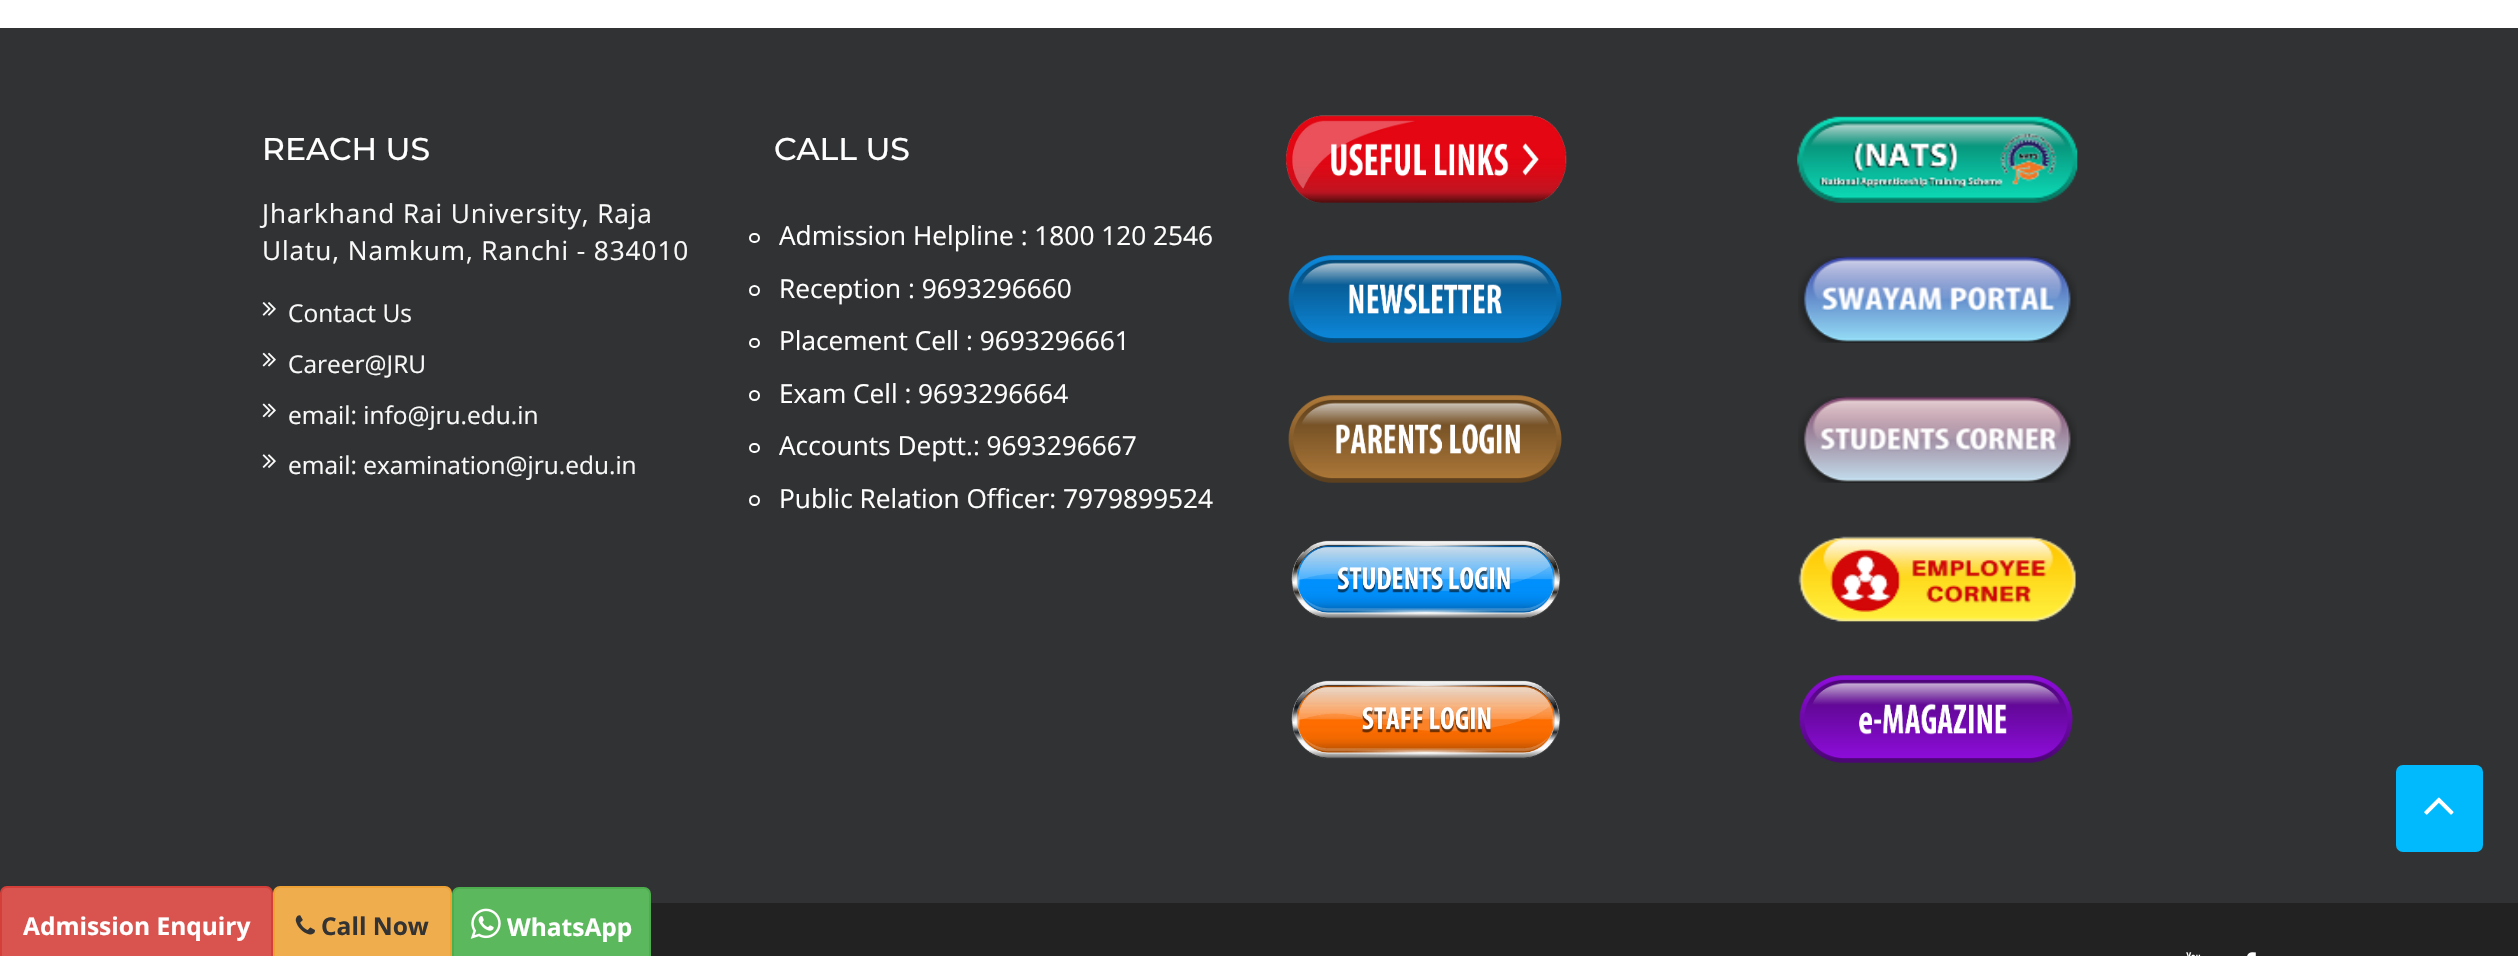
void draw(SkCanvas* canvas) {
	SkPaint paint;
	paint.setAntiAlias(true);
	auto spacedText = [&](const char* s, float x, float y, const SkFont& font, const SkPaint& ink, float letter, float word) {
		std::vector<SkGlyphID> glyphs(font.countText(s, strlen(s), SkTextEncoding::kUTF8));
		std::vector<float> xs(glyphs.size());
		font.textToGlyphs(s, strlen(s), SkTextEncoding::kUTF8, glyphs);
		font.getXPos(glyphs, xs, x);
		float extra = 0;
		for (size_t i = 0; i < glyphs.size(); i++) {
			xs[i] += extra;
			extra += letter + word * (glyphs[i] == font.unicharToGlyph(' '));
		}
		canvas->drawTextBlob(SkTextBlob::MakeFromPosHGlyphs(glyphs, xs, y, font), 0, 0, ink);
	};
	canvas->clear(0xffffffff);
	paint.setColor(0xff313233);
	canvas->drawRect(SkRect::MakeXYWH(0, 28, 2518, 875), paint);
	SkFont f1(fontMgr->matchFamilyStyle("Montserrat", SkFontStyle(500, SkFontStyle::kNormal_Width, SkFontStyle::kUpright_Slant)), 31.5);
	f1.setSubpixel(true);
	paint.setColor(0xffffffff);
	canvas->drawString("REACH US", 262, 160, f1, paint);
	SkFont f2(fontMgr->matchFamilyStyle("Open Sans", SkFontStyle::Normal()), 26.25);
	f2.setSubpixel(true);
	paint.setColor(0xfff9f9f9);
	spacedText("Jharkhand Rai University, Raja", 262, 223, f2, paint, 0.9, 0);
	spacedText("Ulatu, Namkum, Ranchi - 834010", 262, 260, f2, paint, 0.9, 0);
	canvas->drawImageRect(SkImages::DeferredFromEncodedData(SkData::MakeFromFileName("img1.png")), SkRect::MakeXYWH(262, 302, 14, 14), SkSamplingOptions());
	SkFont f3(fontMgr->matchFamilyStyle("Open Sans", SkFontStyle::Normal()), 24.5);
	f3.setSubpixel(true);
	canvas->drawString("Contact Us", 288, 322, f3, paint);
	canvas->drawImageRect(SkImages::DeferredFromEncodedData(SkData::MakeFromFileName("img2.png")), SkRect::MakeXYWH(262, 352, 14, 15), SkSamplingOptions());
	canvas->drawString("Career@JRU", 288, 373, f3, paint);
	canvas->drawImageRect(SkImages::DeferredFromEncodedData(SkData::MakeFromFileName("img3.png")), SkRect::MakeXYWH(262, 403, 14, 15), SkSamplingOptions());
	canvas->drawString("email: info@jru.edu.in", 288, 424, f3, paint);
	canvas->drawImageRect(SkImages::DeferredFromEncodedData(SkData::MakeFromFileName("img4.png")), SkRect::MakeXYWH(262, 454, 14, 14), SkSamplingOptions());
	canvas->drawString("email: examination@jru.edu.in", 288, 474, f3, paint);
	paint.setColor(0xffffffff);
	canvas->drawString("CALL US", 774, 160, f1, paint);
	paint.setStroke(true);
	paint.setStrokeWidth(2);
	canvas->drawRoundRect(SkRect::MakeXYWH(750, 234, 9, 8), 4, 4, paint);
	paint.setStroke(false);
	canvas->drawString("Admission Helpline : 1800 120 2546", 779, 245, f2, paint);
	paint.setStroke(true);
	canvas->drawCircle(754.5, 290.5, 4.5, paint);
	paint.setStroke(false);
	canvas->drawString("Reception : 9693296660", 779, 298, f2, paint);
	paint.setStroke(true);
	canvas->drawRoundRect(SkRect::MakeXYWH(750, 339, 9, 8), 4, 4, paint);
	paint.setStroke(false);
	canvas->drawString("Placement Cell : 9693296661", 779, 350, f2, paint);
	paint.setStroke(true);
	canvas->drawCircle(754.5, 395.5, 4.5, paint);
	paint.setStroke(false);
	canvas->drawString("Exam Cell : 9693296664", 779, 403, f2, paint);
	paint.setStroke(true);
	canvas->drawRoundRect(SkRect::MakeXYWH(750, 444, 9, 8), 4, 4, paint);
	paint.setStroke(false);
	canvas->drawString("Accounts Deptt.: 9693296667", 779, 455, f2, paint);
	paint.setStroke(true);
	canvas->drawCircle(754.5, 500.5, 4.5, paint);
	paint.setStroke(false);
	canvas->drawString("Public Relation Officer: 7979899524", 779, 508, f2, paint);
	canvas->drawImageRect(SkImages::DeferredFromEncodedData(SkData::MakeFromFileName("img5.png")), SkRect::MakeXYWH(1286, 115, 281, 88), SkSamplingOptions());
	canvas->drawImageRect(SkImages::DeferredFromEncodedData(SkData::MakeFromFileName("img6.png")), SkRect::MakeXYWH(1288, 255, 274, 88), SkSamplingOptions());
	canvas->drawImageRect(SkImages::DeferredFromEncodedData(SkData::MakeFromFileName("img7.png")), SkRect::MakeXYWH(1288, 395, 274, 88), SkSamplingOptions());
	canvas->drawImageRect(SkImages::DeferredFromEncodedData(SkData::MakeFromFileName("img8.png")), SkRect::MakeXYWH(1291, 540, 270, 79), SkSamplingOptions());
	canvas->drawImageRect(SkImages::DeferredFromEncodedData(SkData::MakeFromFileName("img9.png")), SkRect::MakeXYWH(1291, 680, 270, 79), SkSamplingOptions());
	canvas->drawImageRect(SkImages::DeferredFromEncodedData(SkData::MakeFromFileName("img10.png")), SkRect::MakeXYWH(1797, 116, 281, 87), SkSamplingOptions());
	canvas->drawImageRect(SkImages::DeferredFromEncodedData(SkData::MakeFromFileName("img11.png")), SkRect::MakeXYWH(1798, 256, 279, 87), SkSamplingOptions());
	canvas->drawImageRect(SkImages::DeferredFromEncodedData(SkData::MakeFromFileName("img12.png")), SkRect::MakeXYWH(1798, 396, 279, 87), SkSamplingOptions());
	canvas->drawImageRect(SkImages::DeferredFromEncodedData(SkData::MakeFromFileName("img13.png")), SkRect::MakeXYWH(1798, 536, 278, 86), SkSamplingOptions());
	canvas->drawImageRect(SkImages::DeferredFromEncodedData(SkData::MakeFromFileName("img14.png")), SkRect::MakeXYWH(1799, 675, 274, 88), SkSamplingOptions());
	paint.setColor(0xff222222);
	canvas->drawRect(SkRect::MakeXYWH(651, 903, 1867, 53), paint);
	canvas->drawImageRect(SkImages::DeferredFromEncodedData(SkData::MakeFromFileName("img15.png")), SkRect::MakeXYWH(2186, 952, 15, 4), SkSamplingOptions());
	canvas->drawImageRect(SkImages::DeferredFromEncodedData(SkData::MakeFromFileName("img16.png")), SkRect::MakeXYWH(2247, 952, 9, 4), SkSamplingOptions());
	paint.setColor(0xff01bafd);
	canvas->drawRoundRect(SkRect::MakeXYWH(2398, 767, 83, 83), 5, 5, paint);
	paint.setStroke(true);
	paint.setStrokeWidth(4);
	canvas->drawRoundRect(SkRect::MakeXYWH(2398, 767, 83, 83), 5, 5, paint);
	canvas->drawImageRect(SkImages::DeferredFromEncodedData(SkData::MakeFromFileName("img17.png")), SkRect::MakeXYWH(2424, 797, 30, 18), SkSamplingOptions());
	paint.setStroke(false);
	paint.setColor(0xffd9534f);
	canvas->drawRoundRect(SkRect::MakeXYWH(1, 887, 271, 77), 6, 6, paint);
	paint.setStroke(true);
	paint.setStrokeWidth(2);
	paint.setColor(0xffd43f3a);
	canvas->drawRoundRect(SkRect::MakeXYWH(1, 887, 271, 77), 6, 6, paint);
	SkFont f4(fontMgr->matchFamilyStyle("Open Sans", SkFontStyle::Bold()), 24.5);
	f4.setSubpixel(true);
	paint.setStroke(false);
	paint.setColor(0xffffffff);
	canvas->drawString("Admission Enquiry", 23, 935, f4, paint);
	paint.setColor(0xfff0ad4e);
	canvas->drawRoundRect(SkRect::MakeXYWH(274, 887, 177, 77), 6, 6, paint);
	paint.setStroke(true);
	paint.setColor(0xffeea236);
	canvas->drawRoundRect(SkRect::MakeXYWH(274, 887, 177, 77), 6, 6, paint);
	canvas->drawImageRect(SkImages::DeferredFromEncodedData(SkData::MakeFromFileName("img18.png")), SkRect::MakeXYWH(295, 915, 20, 20), SkSamplingOptions());
	paint.setStroke(false);
	paint.setColor(0xff333333);
	canvas->drawString("Call Now", 321, 935, f4, paint);
	paint.setColor(0xff5cb85c);
	canvas->drawRoundRect(SkRect::MakeXYWH(453, 888, 197, 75), 6, 6, paint);
	paint.setStroke(true);
	paint.setColor(0xff4cae4c);
	canvas->drawRoundRect(SkRect::MakeXYWH(453, 888, 197, 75), 6, 6, paint);
	canvas->drawImageRect(SkImages::DeferredFromEncodedData(SkData::MakeFromFileName("img19.png")), SkRect::MakeXYWH(470, 908, 31, 31), SkSamplingOptions());
	paint.setStroke(false);
	paint.setColor(0xffffffff);
	canvas->drawString("WhatsApp", 507, 936, f4, paint);
}
